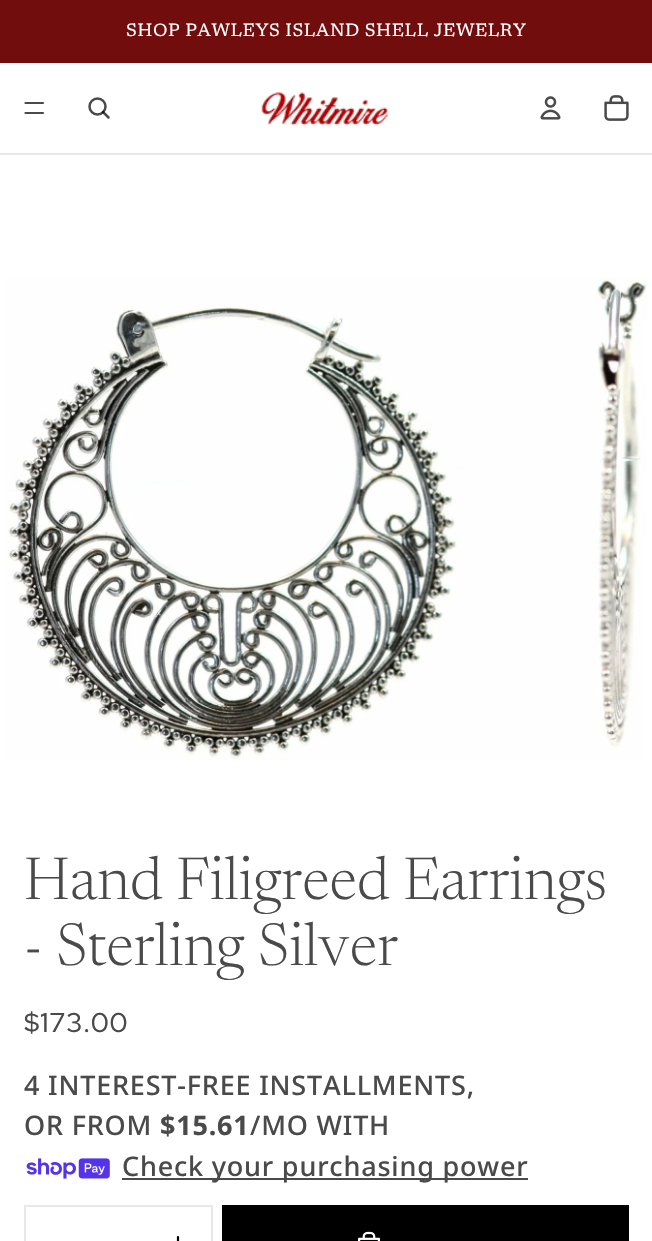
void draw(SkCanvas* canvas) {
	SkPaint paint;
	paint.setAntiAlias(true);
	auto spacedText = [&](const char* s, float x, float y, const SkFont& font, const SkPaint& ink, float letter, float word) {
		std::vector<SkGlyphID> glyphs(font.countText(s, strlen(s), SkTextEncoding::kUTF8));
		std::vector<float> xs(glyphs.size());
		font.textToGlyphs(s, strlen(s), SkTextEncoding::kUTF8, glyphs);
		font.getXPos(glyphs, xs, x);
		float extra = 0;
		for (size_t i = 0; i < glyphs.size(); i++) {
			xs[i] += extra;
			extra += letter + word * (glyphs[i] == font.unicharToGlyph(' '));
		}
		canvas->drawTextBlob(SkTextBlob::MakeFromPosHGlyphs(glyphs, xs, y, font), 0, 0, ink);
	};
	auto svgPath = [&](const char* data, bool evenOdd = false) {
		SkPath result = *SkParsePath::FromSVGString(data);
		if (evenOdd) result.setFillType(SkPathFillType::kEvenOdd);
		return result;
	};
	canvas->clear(0xffffffff);
	paint.setColor(0xff710d0d);
	canvas->drawRect(SkRect::MakeXYWH(0, 0, 652, 63), paint);
	SkFont f1(fontMgr->matchFamilyStyle("Newsreader", SkFontStyle::Normal()), 18);
	f1.setSubpixel(true);
	paint.setColor(0xffffffff);
	spacedText("SHOP PAWLEYS ISLAND SHELL JEWELRY", 126, 36, f1, paint, 0.55, 0);
	paint.setColor(0xffeae8e6);
	canvas->drawRect(SkRect::MakeXYWH(0, 153, 652, 2), paint);
	paint.setStroke(true);
	paint.setStrokeWidth(2.2);
	paint.setStrokeCap(SkPaint::kRound_Cap);
	paint.setColor(0xff4a4a4a);
	canvas->drawPath(svgPath("M25.5 103H43M25.5 113H43"), paint);
	paint.setStrokeWidth(2.5);
	paint.setStrokeCap(SkPaint::kButt_Cap);
	canvas->drawCircle(97.5, 106.5, 8, paint);
	paint.setStrokeCap(SkPaint::kRound_Cap);
	paint.setStrokeJoin(SkPaint::kRound_Join);
	paint.setColor(0xb5000000);
	canvas->drawPath(svgPath("M103 112L108.5 117.5"), paint);
	canvas->drawImageRect(SkImages::DeferredFromEncodedData(SkData::MakeFromFileName("img1.png")), SkRect::MakeXYWH(261, 92, 127, 34), SkSamplingOptions());
	canvas->drawImageRect(SkImages::DeferredFromEncodedData(SkData::MakeFromFileName("img2.png")), SkRect::MakeXYWH(540, 96, 21, 24), SkSamplingOptions());
	canvas->drawImageRect(SkImages::DeferredFromEncodedData(SkData::MakeFromFileName("img3.png")), SkRect::MakeXYWH(604, 95, 25, 26), SkSamplingOptions());
	canvas->drawImageRect(SkImages::DeferredFromEncodedData(SkData::MakeFromFileName("img4.png")), SkRect::MakeXYWH(6, 277, 641, 484), SkSamplingOptions());
	SkFont f2(fontMgr->matchFamilyStyle("Newsreader", SkFontStyle(300, SkFontStyle::kNormal_Width, SkFontStyle::kUpright_Slant)), 60);
	f2.setSubpixel(true);
	paint.setStroke(false);
	paint.setColor(0xff4a4a4a);
	canvas->drawString("Hand Filigreed Earrings", 24, 899, f2, paint);
	canvas->drawString("- Sterling Silver", 24, 965, f2, paint);
	SkFont f3(fontMgr->matchFamilyStyle("Red Hat Display", SkFontStyle(500, SkFontStyle::kNormal_Width, SkFontStyle::kUpright_Slant)), 27);
	f3.setSubpixel(true);
	spacedText("$173.00", 24, 1032, f3, paint, 0.8, 0);
	SkFont f4(fontMgr->matchFamilyStyle("Noto Sans", SkFontStyle(500, SkFontStyle::kNormal_Width, SkFontStyle::kUpright_Slant)), 27);
	f4.setSubpixel(true);
	spacedText("4 INTEREST-FREE INSTALLMENTS,", 24, 1095, f4, paint, 0.8, 0);
	spacedText("OR FROM", 24, 1135, f4, paint, 0.8, 0);
	SkFont f5(fontMgr->matchFamilyStyle("Noto Sans", SkFontStyle::Bold()), 27);
	f5.setSubpixel(true);
	spacedText("$15.61", 160, 1135, f5, paint, 0.8, 0);
	spacedText("/MO WITH", 250, 1135, f4, paint, 0.8, 0);
	canvas->drawImageRect(SkImages::DeferredFromEncodedData(SkData::MakeFromFileName("img5.png")), SkRect::MakeXYWH(26, 1158, 84, 21), SkSamplingOptions());
	canvas->drawRect(SkRect::MakeXYWH(122, 1178, 406, 2), paint);
	spacedText("Check your purchasing power", 122, 1176, f4, paint, 0.8, 0);
	paint.setStroke(true);
	paint.setStrokeWidth(2);
	paint.setStrokeCap(SkPaint::kButt_Cap);
	paint.setStrokeJoin(SkPaint::kMiter_Join);
	paint.setColor(0xffeae8e6);
	canvas->drawRect(SkRect::MakeXYWH(25, 1206, 187, 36), paint);
	paint.setStrokeWidth(2.2);
	paint.setStrokeCap(SkPaint::kRound_Cap);
	paint.setColor(0xff000000);
	canvas->drawPath(svgPath("M178 1237V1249.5"), paint);
	paint.setStroke(false);
	canvas->drawRect(SkRect::MakeXYWH(222, 1205, 407, 36), paint);
	canvas->drawImageRect(SkImages::DeferredFromEncodedData(SkData::MakeFromFileName("img6.png")), SkRect::MakeXYWH(358, 1231, 22, 10), SkSamplingOptions());
}
